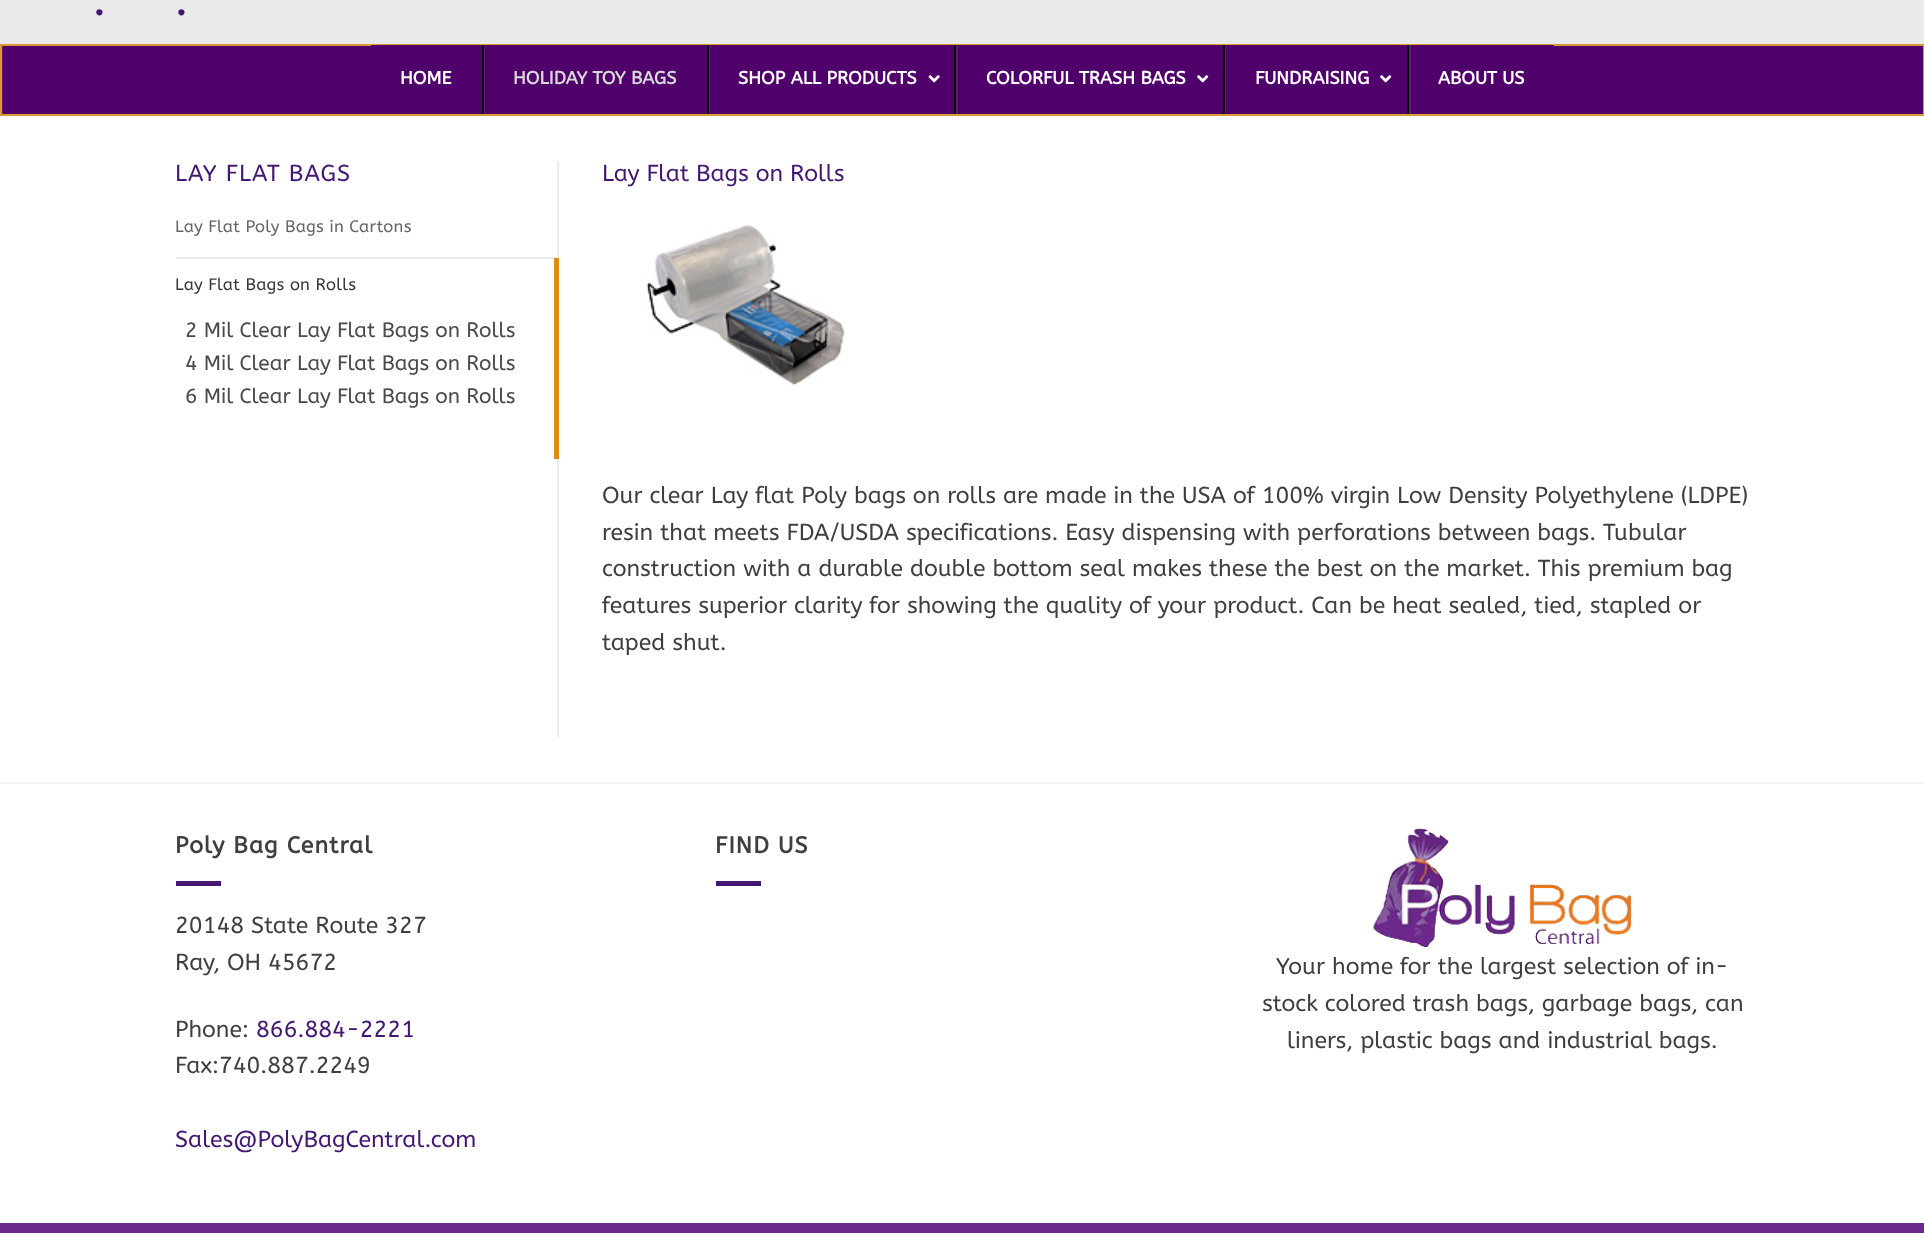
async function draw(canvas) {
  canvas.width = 1924;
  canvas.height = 1233;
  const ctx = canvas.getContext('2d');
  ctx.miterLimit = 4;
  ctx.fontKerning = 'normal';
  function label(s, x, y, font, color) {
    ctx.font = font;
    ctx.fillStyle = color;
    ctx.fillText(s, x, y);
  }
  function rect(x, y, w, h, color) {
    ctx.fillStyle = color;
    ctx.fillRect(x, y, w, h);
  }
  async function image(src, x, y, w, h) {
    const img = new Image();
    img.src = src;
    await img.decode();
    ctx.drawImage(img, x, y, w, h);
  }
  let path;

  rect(0, 0, 1924, 1233, '#fff');
  rect(0, 0, 1924, 44, '#eaeaea');
  label('.', 93, 15, 'bold 39px ABeeZee', '#441772');
  label('.', 175, 15, 'bold 39px ABeeZee', '#441772');
  rect(3, 46, 1920, 68, '#50006a');
  ctx.save();
  ctx.beginPath();
  ctx.rect(2, 45, 1921, 69);
  ctx.clip();
  ctx.fillStyle = '#621a79';
  path = new Path2D('M-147-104H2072V262H-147ZM3 46H1924V116H3Z');
  ctx.fill(path, 'evenodd');
  ctx.restore();
  ctx.strokeStyle = '#d93';
  ctx.lineWidth = 2;
  ctx.strokeRect(1, 45, 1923, 70);
  rect(371, 45, 111, 1, '#50006a');
  label('HOME', 400, 84, 'bold 18px ABeeZee', '#fff');
  rect(485, 45, 222, 1, '#50006a');
  rect(484, 45, 1, 69, '#621a79');
  rect(482, 45, 2, 69, '#000');
  label('HOLIDAY TOY BAGS', 513, 84, 'bold 18px ABeeZee', '#d9d9d9');
  rect(710, 45, 244, 1, '#50006a');
  rect(709, 45, 1, 69, '#621a79');
  rect(707, 45, 2, 69, '#000');
  label('SHOP ALL PRODUCTS', 738, 84, 'bold 18px ABeeZee', '#fff');
  await image('assets/img1.png', 928, 75, 12, 8);
  rect(958, 45, 265, 1, '#50006a');
  rect(956, 45, 2, 69, '#621a79');
  rect(954, 45, 2, 69, '#000');
  label('COLORFUL TRASH BAGS', 986, 84, 'bold 18px ABeeZee', '#fff');
  await image('assets/img2.png', 1197, 75, 12, 8);
  rect(1226, 45, 181, 1, '#50006a');
  rect(1225, 45, 1, 69, '#621a79');
  rect(1223, 45, 2, 69, '#000');
  label('FUNDRAISING', 1255, 84, 'bold 18px ABeeZee', '#fff');
  await image('assets/img2.png', 1380, 75, 12, 8);
  rect(1411, 45, 143, 1, '#50006a');
  rect(1409, 45, 2, 69, '#621a79');
  rect(1407, 45, 2, 69, '#000');
  label('ABOUT US', 1438, 84, 'bold 18px ABeeZee', '#fff');
  rect(557, 161, 2, 576, '#ececec');
  ctx.letterSpacing = '1.1px';
  label('LAY FLAT BAGS', 175, 181, '23.05px ABeeZee', '#441772');
  ctx.letterSpacing = '0.3px';
  label('Lay Flat Poly Bags in Cartons', 175, 232, '16.6px ABeeZee', '#656565');
  rect(176, 257, 381, 2, '#ececec');
  label('Lay Flat Bags on Rolls', 175, 290, '16.6px ABeeZee', '#363636');
  rect(554, 258, 5, 201, '#dd8d13');
  ctx.letterSpacing = '0px';
  label('2 Mil Clear Lay Flat Bags on Rolls', 185, 337, '20.75px ABeeZee', '#4a4a4a');
  label('4 Mil Clear Lay Flat Bags on Rolls', 185, 370, '20.75px ABeeZee', '#4a4a4a');
  label('6 Mil Clear Lay Flat Bags on Rolls', 185, 403, '20.75px ABeeZee', '#4a4a4a');
  label('Lay Flat Bags on Rolls', 602, 181, '23.05px ABeeZee', '#441772');
  await image('assets/img3.png', 646, 225, 199, 161);
  label('Our clear Lay flat Poly bags on rolls are made in the USA of 100% virgin Low Density Polyethylene (LDPE)', 602, 503, '23.05px ABeeZee', '#3f3f3f');
  label('resin that meets FDA/USDA specifications. Easy dispensing with perforations between bags. Tubular', 602, 540, '23.05px ABeeZee', '#3f3f3f');
  label('construction with a durable double bottom seal makes these the best on the market. This premium bag', 602, 576, '23.05px ABeeZee', '#3f3f3f');
  label('features superior clarity for showing the quality of your product. Can be heat sealed, tied, stapled or', 602, 613, '23.05px ABeeZee', '#3f3f3f');
  label('taped shut.', 602, 650, '23.05px ABeeZee', '#3f3f3f');
  rect(0, 782, 1924, 2, '#f2f2f2');
  ctx.letterSpacing = '1.1px';
  label('Poly Bag Central', 175, 853, 'bold 23.05px ABeeZee', '#3f3f3f');
  rect(176, 881, 45, 5, '#441772');
  ctx.letterSpacing = '0px';
  label('20148 State Route 327', 175, 933, '23.05px ABeeZee', '#3f3f3f');
  label('Ray, OH 45672', 175, 970, '23.05px ABeeZee', '#3f3f3f');
  label('Phone:', 175, 1037, '23.05px ABeeZee', '#3f3f3f');
  label('866.884-2221', 256, 1037, '23.05px ABeeZee', '#441772');
  label('Fax:740.887.2249', 175, 1073, '23.05px ABeeZee', '#3f3f3f');
  label('Sales@PolyBagCentral.com', 175, 1147, '23.05px ABeeZee', '#441772');
  ctx.letterSpacing = '1.1px';
  label('FIND US', 715, 853, 'bold 23.05px ABeeZee', '#3f3f3f');
  rect(716, 881, 45, 5, '#441772');
  await image('assets/img4.png', 1373, 828, 259, 119);
  ctx.letterSpacing = '0px';
  label('Your home for the largest selection of in-', 1276, 974, '23.05px ABeeZee', '#3f3f3f');
  label('stock colored trash bags, garbage bags, can', 1262, 1011, '23.05px ABeeZee', '#3f3f3f');
  label('liners, plastic bags and industrial bags.', 1287, 1048, '23.05px ABeeZee', '#3f3f3f');
  rect(0, 1223, 1924, 10, '#6e288a');
}

draw(document.querySelector('canvas'));
